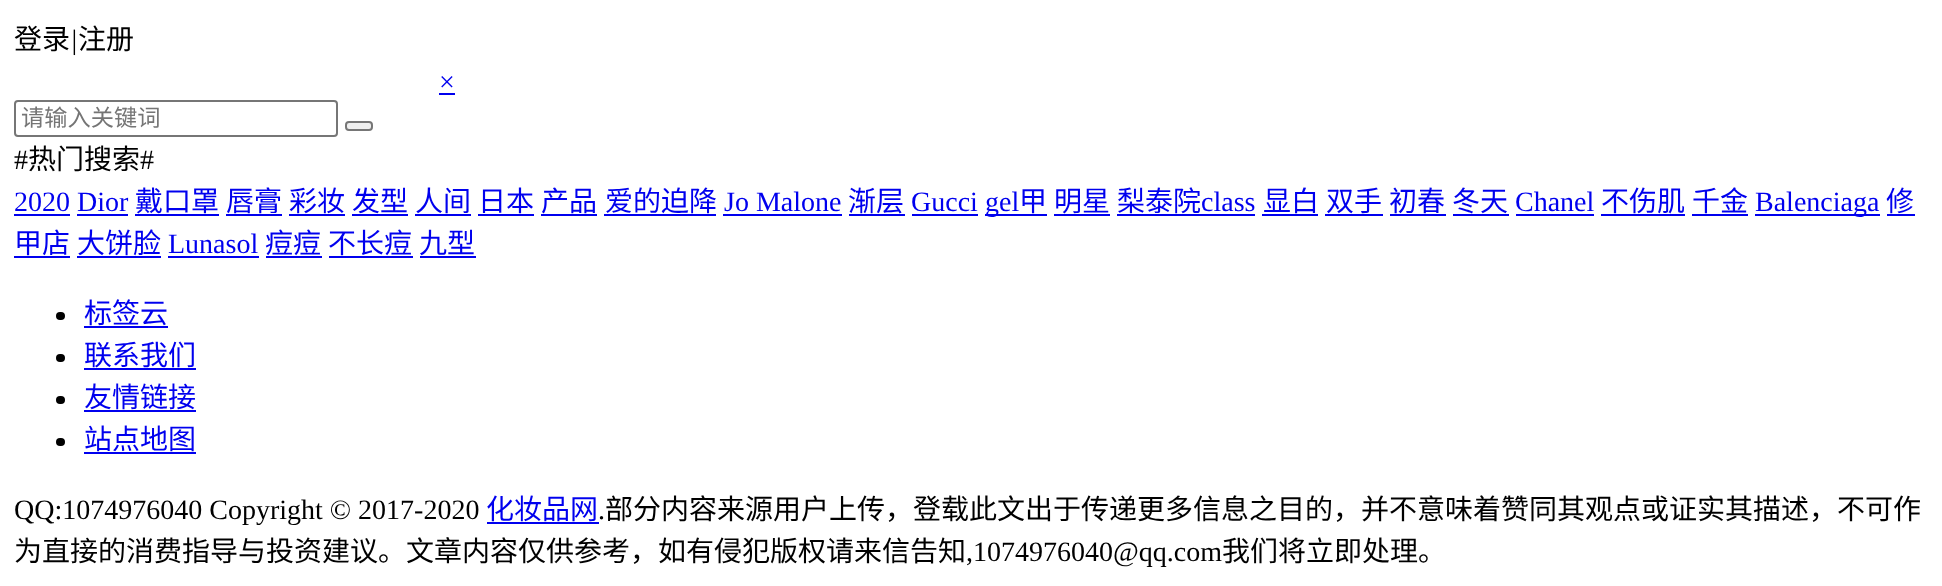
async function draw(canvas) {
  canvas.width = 1942;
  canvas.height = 586;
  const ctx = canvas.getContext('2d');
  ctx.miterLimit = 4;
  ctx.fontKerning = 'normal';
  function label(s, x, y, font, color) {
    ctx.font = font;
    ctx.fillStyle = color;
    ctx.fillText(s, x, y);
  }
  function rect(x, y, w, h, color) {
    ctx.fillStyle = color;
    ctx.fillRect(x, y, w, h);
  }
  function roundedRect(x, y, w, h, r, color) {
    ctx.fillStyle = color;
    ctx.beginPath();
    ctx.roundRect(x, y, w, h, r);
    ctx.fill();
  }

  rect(0, 0, 1942, 586, '#fff');
  label('登录', 14, 49, '28px Noto Sans CJK SC', '#000');
  label('|', 70, 49, 'italic 28px Liberation Serif', '#000');
  label('注册', 78, 49, '28px Noto Sans CJK SC', '#000');
  label('×', 439, 91, '28px Liberation Serif', '#00e');
  rect(439, 93, 16, 2, '#00e');
  ctx.beginPath();
  ctx.roundRect(15, 101, 322, 35, 3);
  ctx.strokeStyle = '#767676';
  ctx.lineWidth = 2;
  ctx.stroke();
  label('请输入关键词', 21, 126, '23.25px Noto Sans CJK SC', '#757575');
  ctx.fillStyle = '#efefef';
  ctx.beginPath();
  ctx.roundRect(346, 122, 26, 8, 3);
  ctx.fill();
  ctx.stroke();
  label('#', 14, 169, '28px Liberation Serif', '#000');
  label('热门搜索', 28, 169, '28px Noto Sans CJK SC', '#000');
  label('#', 140, 169, '28px Liberation Serif', '#000');
  label('2020 Dior', 14, 211, '28px Liberation Serif', '#00e');
  rect(14, 214, 56, 2, '#00e');
  label('戴口罩', 135, 211, '28px Noto Sans CJK SC', '#00e');
  rect(135, 214, 84, 2, '#00e');
  label('唇膏', 226, 211, '28px Noto Sans CJK SC', '#00e');
  rect(226, 214, 56, 2, '#00e');
  label('彩妆', 289, 211, '28px Noto Sans CJK SC', '#00e');
  rect(289, 214, 56, 2, '#00e');
  label('发型', 352, 211, '28px Noto Sans CJK SC', '#00e');
  rect(352, 214, 56, 2, '#00e');
  label('人间', 415, 211, '28px Noto Sans CJK SC', '#00e');
  rect(415, 214, 56, 2, '#00e');
  label('日本', 478, 211, '28px Noto Sans CJK SC', '#00e');
  rect(478, 214, 56, 2, '#00e');
  label('产品', 541, 211, '28px Noto Sans CJK SC', '#00e');
  rect(541, 214, 56, 2, '#00e');
  label('爱的迫降', 605, 211, '28px Noto Sans CJK SC', '#00e');
  rect(604, 214, 112, 2, '#00e');
  label('Jo Malone', 724, 211, '28px Liberation Serif', '#00e');
  rect(723, 214, 119, 2, '#00e');
  label('渐层', 848, 211, '28px Noto Sans CJK SC', '#00e');
  rect(849, 214, 56, 2, '#00e');
  label('Gucci', 911, 211, '28px Liberation Serif', '#00e');
  rect(912, 214, 66, 2, '#00e');
  rect(985, 214, 62, 2, '#00e');
  label('gel', 985, 211, '28px Liberation Serif', '#00e');
  label('甲', 1019, 211, '28px Noto Sans CJK SC', '#00e');
  label('明星', 1054, 211, '28px Noto Sans CJK SC', '#00e');
  rect(1054, 214, 56, 2, '#00e');
  label('梨泰院', 1117, 211, '28px Noto Sans CJK SC', '#00e');
  label('class', 1201, 211, '28px Liberation Serif', '#00e');
  rect(1117, 214, 138, 2, '#00e');
  label('显白', 1263, 211, '28px Noto Sans CJK SC', '#00e');
  rect(1262, 214, 56, 2, '#00e');
  label('双手', 1326, 211, '28px Noto Sans CJK SC', '#00e');
  rect(1325, 214, 58, 2, '#00e');
  label('初春', 1389, 211, '28px Noto Sans CJK SC', '#00e');
  rect(1390, 214, 56, 2, '#00e');
  label('冬天', 1452, 211, '28px Noto Sans CJK SC', '#00e');
  rect(1453, 214, 56, 2, '#00e');
  label('Chanel', 1515, 211, '28px Liberation Serif', '#00e');
  rect(1516, 214, 78, 2, '#00e');
  label('不伤肌', 1601, 211, '28px Noto Sans CJK SC', '#00e');
  rect(1601, 214, 84, 2, '#00e');
  label('千金', 1692, 211, '28px Noto Sans CJK SC', '#00e');
  rect(1692, 214, 56, 2, '#00e');
  rect(1755, 214, 125, 2, '#00e');
  label('Balenciaga', 1755, 211, '28px Liberation Serif', '#00e');
  label('修', 1886, 211, '28px Noto Sans CJK SC', '#00e');
  rect(1887, 214, 28, 2, '#00e');
  rect(77, 214, 51, 2, '#00e');
  label('甲店', 14, 253, '28px Noto Sans CJK SC', '#00e');
  rect(14, 256, 56, 2, '#00e');
  label('大饼脸', 77, 253, '28px Noto Sans CJK SC', '#00e');
  rect(77, 256, 84, 2, '#00e');
  label('Lunasol', 168, 253, '28px Liberation Serif', '#00e');
  rect(168, 256, 91, 2, '#00e');
  label('痘痘', 265, 253, '28px Noto Sans CJK SC', '#00e');
  rect(266, 256, 56, 2, '#00e');
  label('不长痘', 328, 253, '28px Noto Sans CJK SC', '#00e');
  rect(329, 256, 84, 2, '#00e');
  label('九型', 419, 253, '28px Noto Sans CJK SC', '#00e');
  rect(420, 256, 56, 2, '#00e');
  roundedRect(56, 312, 9, 8, 4, '#000');
  label('标签云', 84, 323, '28px Noto Sans CJK SC', '#00e');
  rect(84, 326, 84, 2, '#00e');
  roundedRect(56, 354, 9, 8, 4, '#000');
  label('联系我们', 84, 365, '28px Noto Sans CJK SC', '#00e');
  rect(84, 368, 112, 2, '#00e');
  roundedRect(56, 396, 9, 8, 4, '#000');
  label('友情链接', 84, 407, '28px Noto Sans CJK SC', '#00e');
  rect(84, 410, 112, 2, '#00e');
  roundedRect(56, 438, 9, 8, 4, '#000');
  label('站点地图', 84, 449, '28px Noto Sans CJK SC', '#00e');
  rect(84, 452, 112, 2, '#00e');
  label('QQ:1074976040 Copyright © 2017-2020', 14, 519, '28px Liberation Serif', '#000');
  label('化妆品网', 486, 519, '28px Noto Sans CJK SC', '#00e');
  rect(487, 522, 112, 2, '#00e');
  label('.', 598, 519, '28px Liberation Serif', '#000');
  label('部分内容来源用户上传，登载此文出于传递更多信息之目的，并不意味着赞同其观点或证实其描述，不可作', 605, 519, '28px Noto Sans CJK SC', '#000');
  label('为直接的消费指导与投资建议。文章内容仅供参考，如有侵犯版权请来信告知', 14, 561, '28px Noto Sans CJK SC', '#000');
  label(',1074976040@qq.com', 966, 561, '28px Liberation Serif', '#000');
  label('我们将立即处理。', 1222, 561, '28px Noto Sans CJK SC', '#000');
}

draw(document.querySelector('canvas'));
